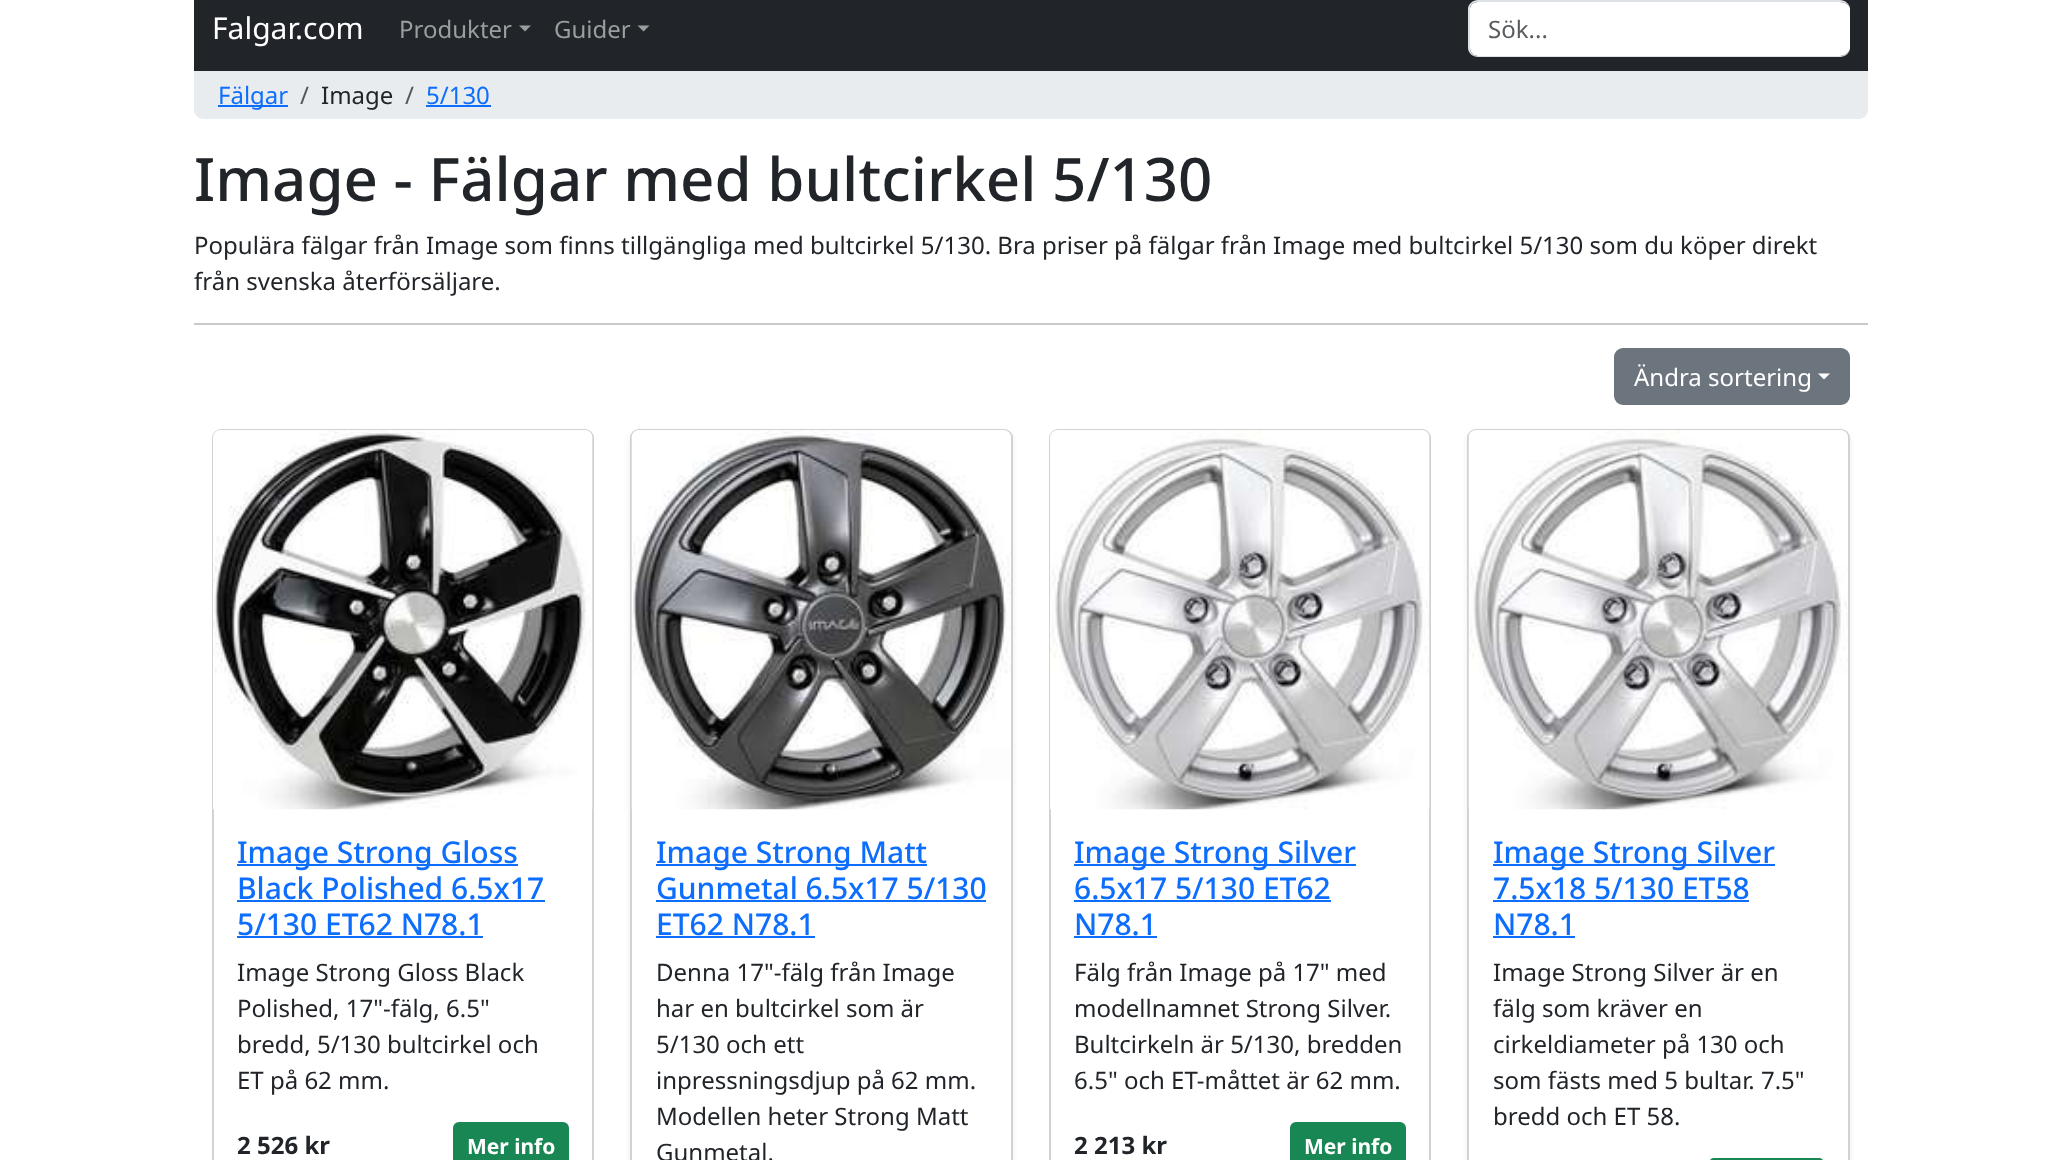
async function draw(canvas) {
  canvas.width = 2061;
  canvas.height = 1160;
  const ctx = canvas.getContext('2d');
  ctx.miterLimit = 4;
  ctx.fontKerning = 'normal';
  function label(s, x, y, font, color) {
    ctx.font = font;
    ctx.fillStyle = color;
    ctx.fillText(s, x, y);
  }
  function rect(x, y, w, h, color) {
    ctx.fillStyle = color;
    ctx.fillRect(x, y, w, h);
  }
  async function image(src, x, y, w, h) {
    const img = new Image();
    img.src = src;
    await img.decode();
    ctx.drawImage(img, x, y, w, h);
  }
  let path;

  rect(0, 0, 2061, 1160, '#fff');
  rect(194, 0, 1674, 71, '#212529');
  label('Falgar.com', 212, 39, '30px Noto Sans', '#fff');
  label('Produkter', 399, 38, '24px Noto Sans', '#9b9d9f');
  path = new Path2D('M519 25.5H531L525 31.5Z');
  ctx.fill(path);
  label('Guider', 554, 38, '24px Noto Sans', '#9b9d9f');
  path = new Path2D('M637.5 25.5H649.5L643.5 31.5Z');
  ctx.fill(path);
  ctx.fillStyle = '#fff';
  path = new Path2D('M1478 2H1840C1845 2 1850 5 1850 9V48C1850 52 1845 56 1840 56H1478C1473 56 1470 52 1470 48V9C1470 5 1473 2 1478 2Z');
  ctx.fill(path);
  ctx.fillStyle = '#dee2e6';
  path = new Path2D('M1478 0H1840C1845 0 1850 4 1850 9V48C1850 53 1845 57 1840 57H1478C1473 57 1468 53 1468 48V9C1468 4 1473 0 1478 0ZM1478 2H1840C1845 2 1850 5 1850 9V48C1850 52 1845 56 1840 56H1478C1473 56 1470 52 1470 48V9C1470 5 1473 2 1478 2Z');
  ctx.fill(path, 'evenodd');
  label('Sök...', 1488, 38, '24px Noto Sans', '#595c5f');
  ctx.fillStyle = '#e9ecef';
  ctx.beginPath();
  ctx.roundRect(194, 71, 1674, 48, [0, 0, 9, 9]);
  ctx.fill();
  rect(218, 105, 70, 2, '#0d6efd');
  label('Fälgar', 218, 104, '24px Noto Sans', '#0d6efd');
  label('/', 300, 104, '24px Noto Sans', '#53575b');
  label('Image', 321, 104, '24px Noto Sans', '#212529');
  label('/', 405, 104, '24px Noto Sans', '#53575b');
  label('5/130', 426, 104, '24px Noto Sans', '#0d6efd');
  rect(426, 105, 65, 2, '#0d6efd');
  label('Image - Fälgar med bultcirkel 5/130', 194, 201, '500 60px Noto Sans', '#212529');
  label('Populära fälgar från Image som finns tillgängliga med bultcirkel 5/130. Bra priser på fälgar från Image med bultcirkel 5/130 som du köper direkt', 194, 254, '24px Noto Sans', '#212529');
  label('från svenska återförsäljare.', 194, 290, '24px Noto Sans', '#212529');
  rect(194, 323, 1674, 2, '#c8c9ca');
  ctx.fillStyle = '#6c757d';
  ctx.beginPath();
  ctx.roundRect(1615, 349, 234, 55, 8);
  ctx.fill();
  ctx.strokeStyle = '#6c757d';
  ctx.lineWidth = 2;
  ctx.stroke();
  label('Ändra sortering', 1634, 386, '24px Noto Sans', '#fff');
  path = new Path2D('M1818 373.5H1830L1824 379.5Z');
  ctx.fill(path);
  ctx.beginPath();
  ctx.roundRect(213, 430, 380, 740, 8);
  ctx.strokeStyle = '#d2d2d2';
  ctx.stroke();
  await image('assets/img1.png', 213, 430, 380, 380);
  rect(237, 864, 281, 2, '#0d6efd');
  label('Image Strong Gloss', 237, 863, '500 30px Noto Sans', '#0d6efd');
  label('Black Polished 6.5x17', 237, 899, '500 30px Noto Sans', '#0d6efd');
  rect(237, 900, 308, 2, '#0d6efd');
  label('5/130 ET62 N78.1', 237, 935, '500 30px Noto Sans', '#0d6efd');
  rect(237, 936, 246, 2, '#0d6efd');
  label('Image Strong Gloss Black', 237, 981, '24px Noto Sans', '#212529');
  label('Polished, 17"-fälg, 6.5"', 237, 1017, '24px Noto Sans', '#212529');
  label('bredd, 5/130 bultcirkel och', 237, 1053, '24px Noto Sans', '#212529');
  label('ET på 62 mm.', 237, 1089, '24px Noto Sans', '#212529');
  label('2 526 kr', 237, 1154, 'bold 24px Noto Sans', '#212529');
  ctx.fillStyle = '#198754';
  ctx.beginPath();
  ctx.roundRect(454, 1123, 114, 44, 5);
  ctx.fill();
  ctx.strokeStyle = '#198754';
  ctx.stroke();
  label('Mer info', 467, 1154, 'bold 21px Noto Sans', '#fff');
  ctx.fillStyle = '#00000012';
  ctx.filter = 'blur(3px)';
  ctx.beginPath();
  ctx.roundRect(630, 432, 383, 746, 9);
  ctx.fill();
  ctx.filter = 'none';
  ctx.fillStyle = '#fff';
  ctx.beginPath();
  ctx.roundRect(631, 430, 381, 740, 8);
  ctx.fill();
  ctx.strokeStyle = '#d2d2d2';
  ctx.stroke();
  await image('assets/img2.png', 631, 430, 380, 380);
  rect(656, 864, 271, 2, '#0d6efd');
  label('Image Strong Matt', 656, 863, '500 30px Noto Sans', '#0d6efd');
  label('Gunmetal 6.5x17 5/130', 656, 899, '500 30px Noto Sans', '#0d6efd');
  rect(656, 900, 330, 2, '#0d6efd');
  label('ET62 N78.1', 656, 935, '500 30px Noto Sans', '#0d6efd');
  rect(656, 936, 159, 2, '#0d6efd');
  label('Denna 17"-fälg från Image', 656, 981, '24px Noto Sans', '#212529');
  label('har en bultcirkel som är', 656, 1017, '24px Noto Sans', '#212529');
  label('5/130 och ett', 656, 1053, '24px Noto Sans', '#212529');
  label('inpressningsdjup på 62 mm.', 656, 1089, '24px Noto Sans', '#212529');
  label('Modellen heter Strong Matt', 656, 1125, '24px Noto Sans', '#212529');
  label('Gunmetal.', 656, 1161, '24px Noto Sans', '#212529');
  ctx.beginPath();
  ctx.roundRect(1050, 430, 380, 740, 8);
  ctx.stroke();
  await image('assets/img3.png', 1050, 430, 380, 380);
  rect(1074, 864, 282, 2, '#0d6efd');
  label('Image Strong Silver', 1074, 863, '500 30px Noto Sans', '#0d6efd');
  label('6.5x17 5/130 ET62', 1074, 899, '500 30px Noto Sans', '#0d6efd');
  rect(1074, 900, 257, 2, '#0d6efd');
  label('N78.1', 1074, 935, '500 30px Noto Sans', '#0d6efd');
  rect(1074, 936, 83, 2, '#0d6efd');
  label('Fälg från Image på 17" med', 1074, 981, '24px Noto Sans', '#212529');
  label('modellnamnet Strong Silver.', 1074, 1017, '24px Noto Sans', '#212529');
  label('Bultcirkeln är 5/130, bredden', 1074, 1053, '24px Noto Sans', '#212529');
  label('6.5" och ET-måttet är 62 mm.', 1074, 1089, '24px Noto Sans', '#212529');
  label('2 213 kr', 1074, 1154, 'bold 24px Noto Sans', '#212529');
  ctx.fillStyle = '#198754';
  ctx.beginPath();
  ctx.roundRect(1291, 1123, 114, 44, 5);
  ctx.fill();
  ctx.strokeStyle = '#198754';
  ctx.stroke();
  label('Mer info', 1304, 1154, 'bold 21px Noto Sans', '#fff');
  ctx.fillStyle = '#00000012';
  ctx.filter = 'blur(3px)';
  ctx.beginPath();
  ctx.roundRect(1467, 432, 383, 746, 9);
  ctx.fill();
  ctx.filter = 'none';
  ctx.fillStyle = '#fff';
  ctx.beginPath();
  ctx.roundRect(1468, 430, 381, 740, 8);
  ctx.fill();
  ctx.strokeStyle = '#d2d2d2';
  ctx.stroke();
  await image('assets/img4.png', 1468, 430, 380, 380);
  rect(1493, 864, 282, 2, '#0d6efd');
  label('Image Strong Silver', 1493, 863, '500 30px Noto Sans', '#0d6efd');
  label('7.5x18 5/130 ET58', 1493, 899, '500 30px Noto Sans', '#0d6efd');
  rect(1493, 900, 256, 2, '#0d6efd');
  label('N78.1', 1493, 935, '500 30px Noto Sans', '#0d6efd');
  rect(1493, 936, 82, 2, '#0d6efd');
  label('Image Strong Silver är en', 1493, 981, '24px Noto Sans', '#212529');
  label('fälg som kräver en', 1493, 1017, '24px Noto Sans', '#212529');
  label('cirkeldiameter på 130 och', 1493, 1053, '24px Noto Sans', '#212529');
  label('som fästs med 5 bultar. 7.5"', 1493, 1089, '24px Noto Sans', '#212529');
  label('bredd och ET 58.', 1493, 1125, '24px Noto Sans', '#212529');
  ctx.beginPath();
  ctx.roundRect(1710, 1159, 113, 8, 5);
  ctx.strokeStyle = '#198754';
  ctx.stroke();
}

draw(document.querySelector('canvas'));
